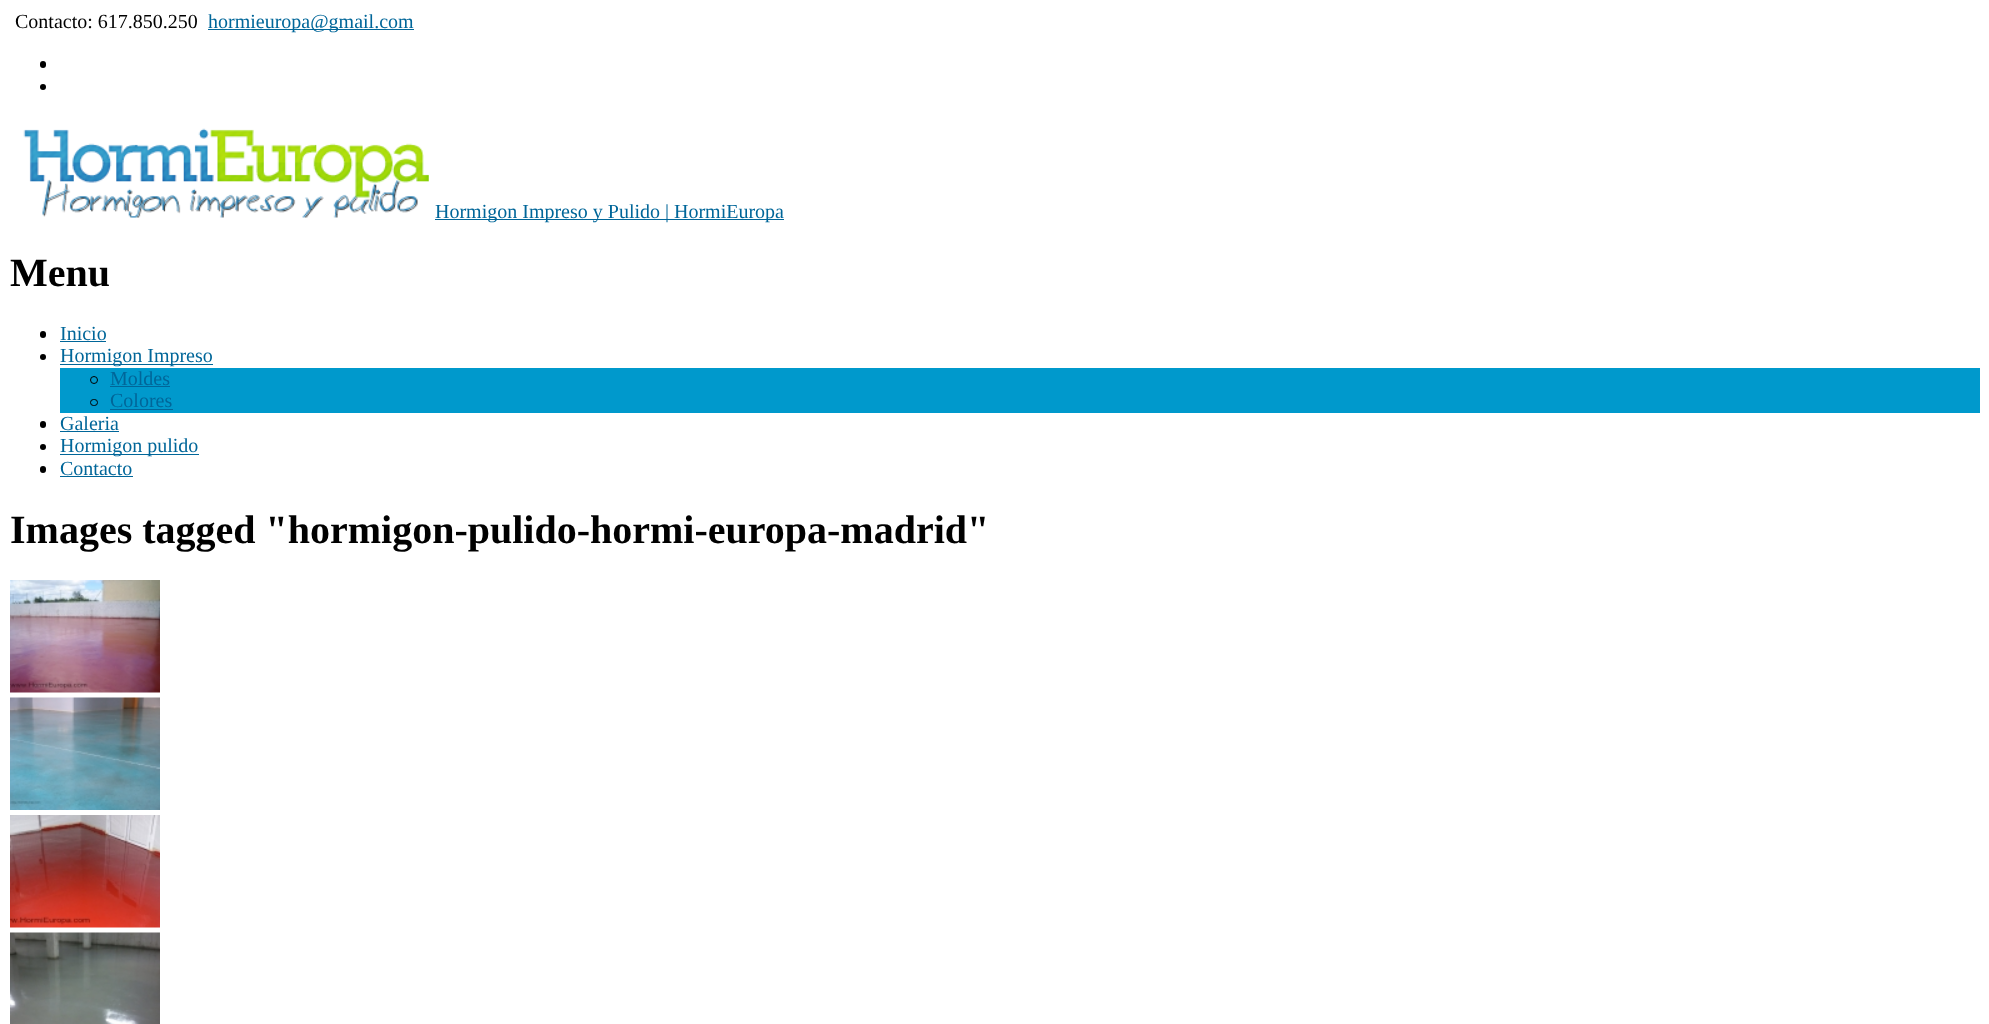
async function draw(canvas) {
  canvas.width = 1989;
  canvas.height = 1024;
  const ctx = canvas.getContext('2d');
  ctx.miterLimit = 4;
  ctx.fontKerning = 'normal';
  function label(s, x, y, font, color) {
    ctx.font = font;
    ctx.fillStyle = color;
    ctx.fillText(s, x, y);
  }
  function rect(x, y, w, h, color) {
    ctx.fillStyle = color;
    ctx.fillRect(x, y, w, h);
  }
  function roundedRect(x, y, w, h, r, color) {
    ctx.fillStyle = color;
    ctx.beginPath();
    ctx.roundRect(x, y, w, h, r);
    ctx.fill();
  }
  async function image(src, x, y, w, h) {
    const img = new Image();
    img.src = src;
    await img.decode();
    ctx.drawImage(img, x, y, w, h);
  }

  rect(0, 0, 1989, 1024, '#fff');
  label('Contacto: 617.850.250', 15, 28, '20px Liberation Serif', '#000');
  rect(208, 29, 206, 1, '#069');
  label('hormieuropa@gmail.com', 208, 28, '20px Liberation Serif', '#069');
  roundedRect(40, 61, 6, 7, 3, '#000');
  ctx.beginPath();
  ctx.arc(43, 87, 3, 0, 2 * Math.PI);
  ctx.fill();
  await image('assets/img1.png', 23, 128, 406, 90);
  rect(435, 219, 349, 1, '#069');
  label('Hormigon Impreso y Pulido | HormiEuropa', 435, 218, '20px Liberation Serif', '#069');
  label('Menu', 10, 286, 'bold 40px Liberation Serif', '#000');
  roundedRect(40, 331, 6, 7, 3, '#000');
  label('Inicio', 60, 340, '20px Liberation Serif', '#069');
  rect(60, 341, 46, 1, '#069');
  ctx.fillStyle = '#000';
  ctx.beginPath();
  ctx.arc(43, 357, 3, 0, 2 * Math.PI);
  ctx.fill();
  rect(60, 364, 153, 1, '#069');
  label('Hormigon Impreso', 60, 362, '20px Liberation Serif', '#069');
  rect(60, 368, 1920, 45, '#09c');
  ctx.beginPath();
  ctx.arc(94, 380, 3.5, 0, 2 * Math.PI);
  ctx.strokeStyle = '#000';
  ctx.stroke();
  label('Moldes', 110, 385, '20px Liberation Serif', '#069');
  rect(110, 386, 60, 1, '#069');
  ctx.beginPath();
  ctx.roundRect(90.5, 399.5, 7, 6, 3);
  ctx.stroke();
  label('Colores', 110, 407, '20px Liberation Serif', '#069');
  rect(110, 409, 63, 1, '#069');
  roundedRect(40, 421, 6, 7, 3, '#000');
  label('Galeria', 60, 430, '20px Liberation Serif', '#069');
  rect(60, 431, 59, 1, '#069');
  ctx.fillStyle = '#000';
  ctx.beginPath();
  ctx.arc(43, 447, 3, 0, 2 * Math.PI);
  ctx.fill();
  rect(60, 454, 139, 1, '#069');
  label('Hormigon pulido', 60, 452, '20px Liberation Serif', '#069');
  roundedRect(40, 466, 6, 7, 3, '#000');
  label('Contacto', 60, 475, '20px Liberation Serif', '#069');
  rect(60, 476, 73, 1, '#069');
  label('Images tagged "hormigon-pulido-hormi-europa-madrid"', 10, 543, 'bold 40px Liberation Serif', '#000');
  await image('assets/img2.png', 10, 580, 150, 113);
  await image('assets/img3.png', 10, 697, 150, 113);
  await image('assets/img4.png', 10, 815, 150, 113);
  await image('assets/img5.png', 10, 932, 150, 92);
}

draw(document.querySelector('canvas'));
